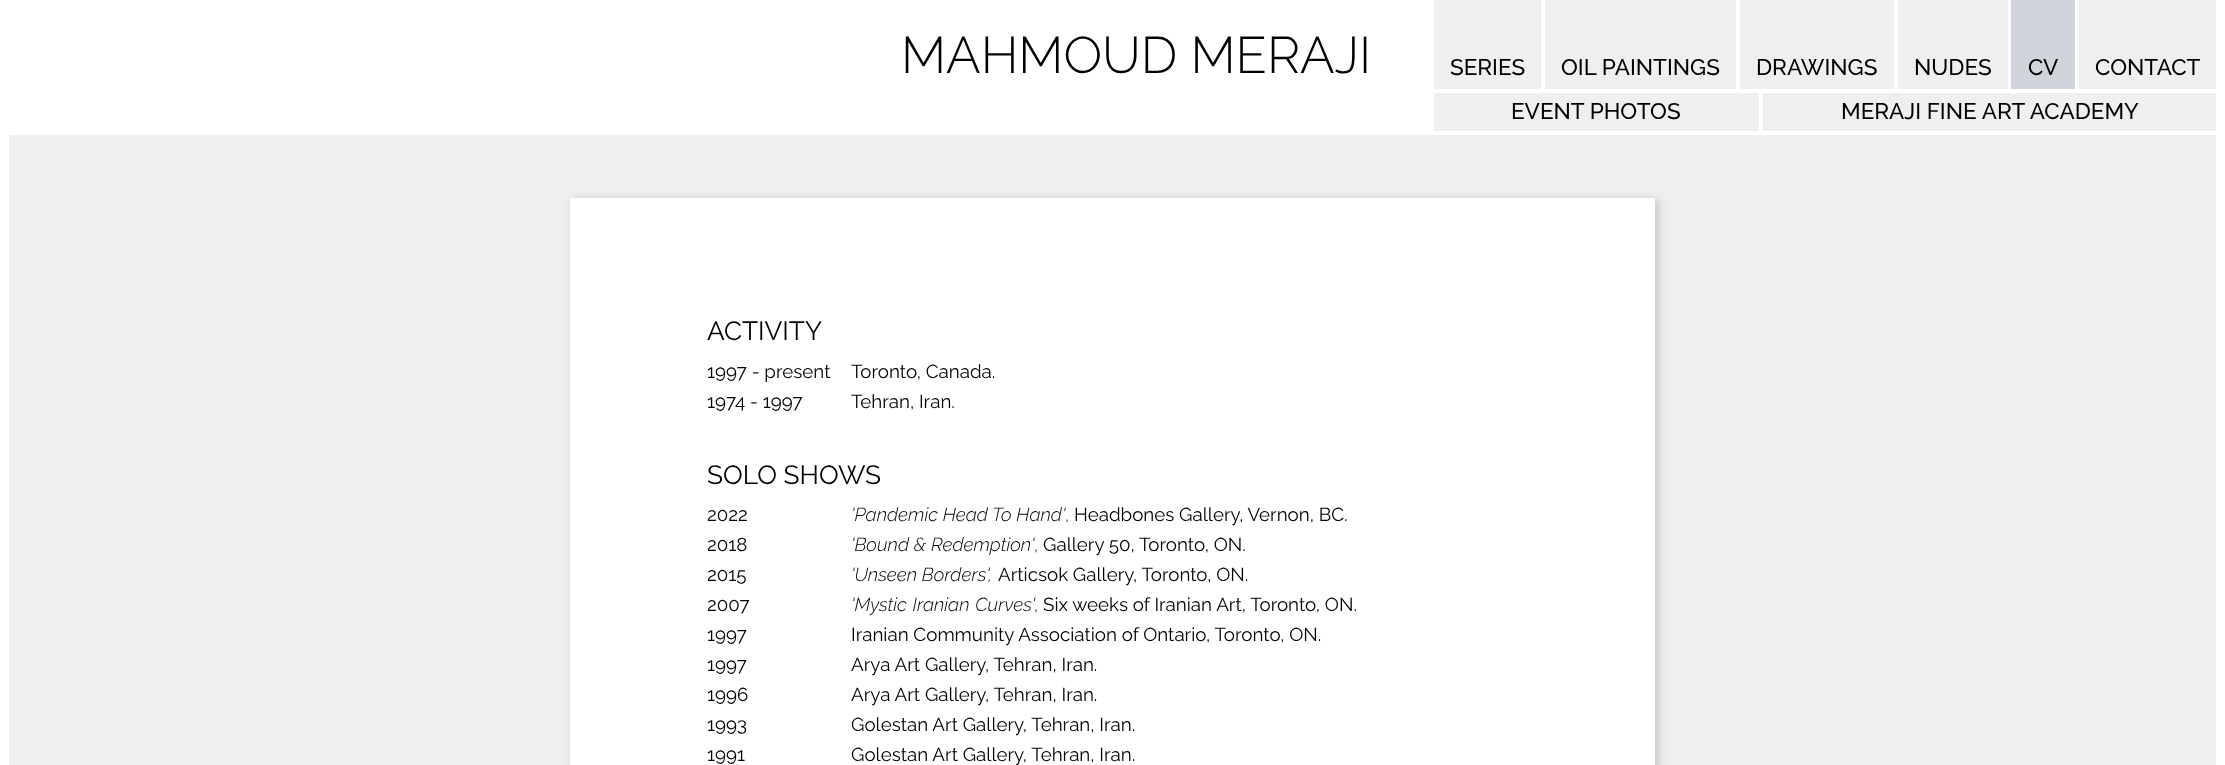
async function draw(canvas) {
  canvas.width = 2225;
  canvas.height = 765;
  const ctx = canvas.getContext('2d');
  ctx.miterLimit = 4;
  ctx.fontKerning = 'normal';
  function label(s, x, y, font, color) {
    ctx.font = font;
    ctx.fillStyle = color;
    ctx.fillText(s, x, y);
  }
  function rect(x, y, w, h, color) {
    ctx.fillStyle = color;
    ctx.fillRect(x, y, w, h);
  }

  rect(0, 0, 2225, 765, '#fff');
  label('MAHMOUD MERAJI', 901, 73, '300 51.25px Raleway', '#000');
  rect(1434, 0, 107, 89, '#efefef');
  label('SERIES', 1450, 75, '500 22.5px Raleway', '#000');
  rect(1545, 0, 191, 89, '#efefef');
  label('OIL PAINTINGS', 1561, 75, '500 22.5px Raleway', '#000');
  rect(1740, 0, 154, 89, '#efefef');
  label('DRAWINGS', 1756, 75, '500 22.5px Raleway', '#000');
  rect(1898, 0, 110, 89, '#efefef');
  label('NUDES', 1914, 75, '500 22.5px Raleway', '#000');
  rect(2011, 0, 64, 89, '#d1d5db');
  label('CV', 2028, 75, '500 22.5px Raleway', '#000');
  rect(2079, 0, 137, 89, '#efefef');
  label('CONTACT', 2095, 75, '500 22.5px Raleway', '#000');
  rect(1434, 93, 325, 38, '#efefef');
  label('EVENT PHOTOS', 1511, 119, '500 22.5px Raleway', '#000');
  rect(1763, 93, 453, 38, '#efefef');
  label('MERAJI FINE ART ACADEMY', 1841, 119, '500 22.5px Raleway', '#000');
  rect(9, 135, 2207, 630, '#efefef');
  ctx.fillStyle = '#c1c1c1';
  ctx.filter = 'blur(5px)';
  ctx.beginPath();
  ctx.rect(573, 200, 1085, 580);
  ctx.fill();
  ctx.filter = 'none';
  rect(570, 198, 1085, 567, '#fff');
  label('ACTIVITY', 707, 340, '26.25px Raleway', '#000');
  label('1997 - present', 707, 378, '18.75px Raleway', '#000');
  label('Toronto, Canada.', 851, 378, '18.75px Raleway', '#000');
  label('1974 - 1997', 707, 408, '18.75px Raleway', '#000');
  label('Tehran, Iran.', 851, 408, '18.75px Raleway', '#000');
  label('SOLO SHOWS', 707, 484, '26.25px Raleway', '#000');
  label('2022', 707, 521, '18.75px Raleway', '#000');
  label('\'Pandemic Head To Hand\'', 851, 521, 'italic 300 18.75px Raleway', '#000');
  label(',', 1066, 521, 'italic 300 18.75px Raleway', '#000');
  label('Headbones Gallery, Vernon, BC.', 1074, 521, '18.75px Raleway', '#000');
  label('2018', 707, 551, '18.75px Raleway', '#000');
  label('\'Bound & Redemption\'', 851, 551, 'italic 300 18.75px Raleway', '#000');
  label(',', 1035, 551, 'italic 300 18.75px Raleway', '#000');
  label('Gallery 50, Toronto, ON.', 1043, 551, '18.75px Raleway', '#000');
  label('2015', 707, 581, '18.75px Raleway', '#000');
  label('\'Unseen Borders\',', 851, 581, 'italic 300 18.75px Raleway', '#000');
  label('Articsok Gallery, Toronto, ON.', 998, 581, '18.75px Raleway', '#000');
  label('2007', 707, 611, '18.75px Raleway', '#000');
  ctx.wordSpacing = '1px';
  label('\'Mystic Iranian Curves\'', 851, 611, 'italic 300 18.75px Raleway', '#000');
  ctx.wordSpacing = '0px';
  label(',', 1035, 611, 'italic 300 18.75px Raleway', '#000');
  label('Six weeks of Iranian Art, Toronto, ON.', 1043, 611, '18.75px Raleway', '#000');
  label('1997', 707, 641, '18.75px Raleway', '#000');
  label('Iranian Community Association of Ontario, Toronto, ON.', 851, 641, '18.75px Raleway', '#000');
  label('1997', 707, 671, '18.75px Raleway', '#000');
  label('Arya Art Gallery, Tehran, Iran.', 851, 671, '18.75px Raleway', '#000');
  label('1996', 707, 701, '18.75px Raleway', '#000');
  label('Arya Art Gallery, Tehran, Iran.', 851, 701, '18.75px Raleway', '#000');
  label('1993', 707, 731, '18.75px Raleway', '#000');
  label('Golestan Art Gallery, Tehran, Iran.', 851, 731, '18.75px Raleway', '#000');
  label('1991', 707, 761, '18.75px Raleway', '#000');
  label('Golestan Art Gallery, Tehran, Iran.', 851, 761, '18.75px Raleway', '#000');
}

draw(document.querySelector('canvas'));
